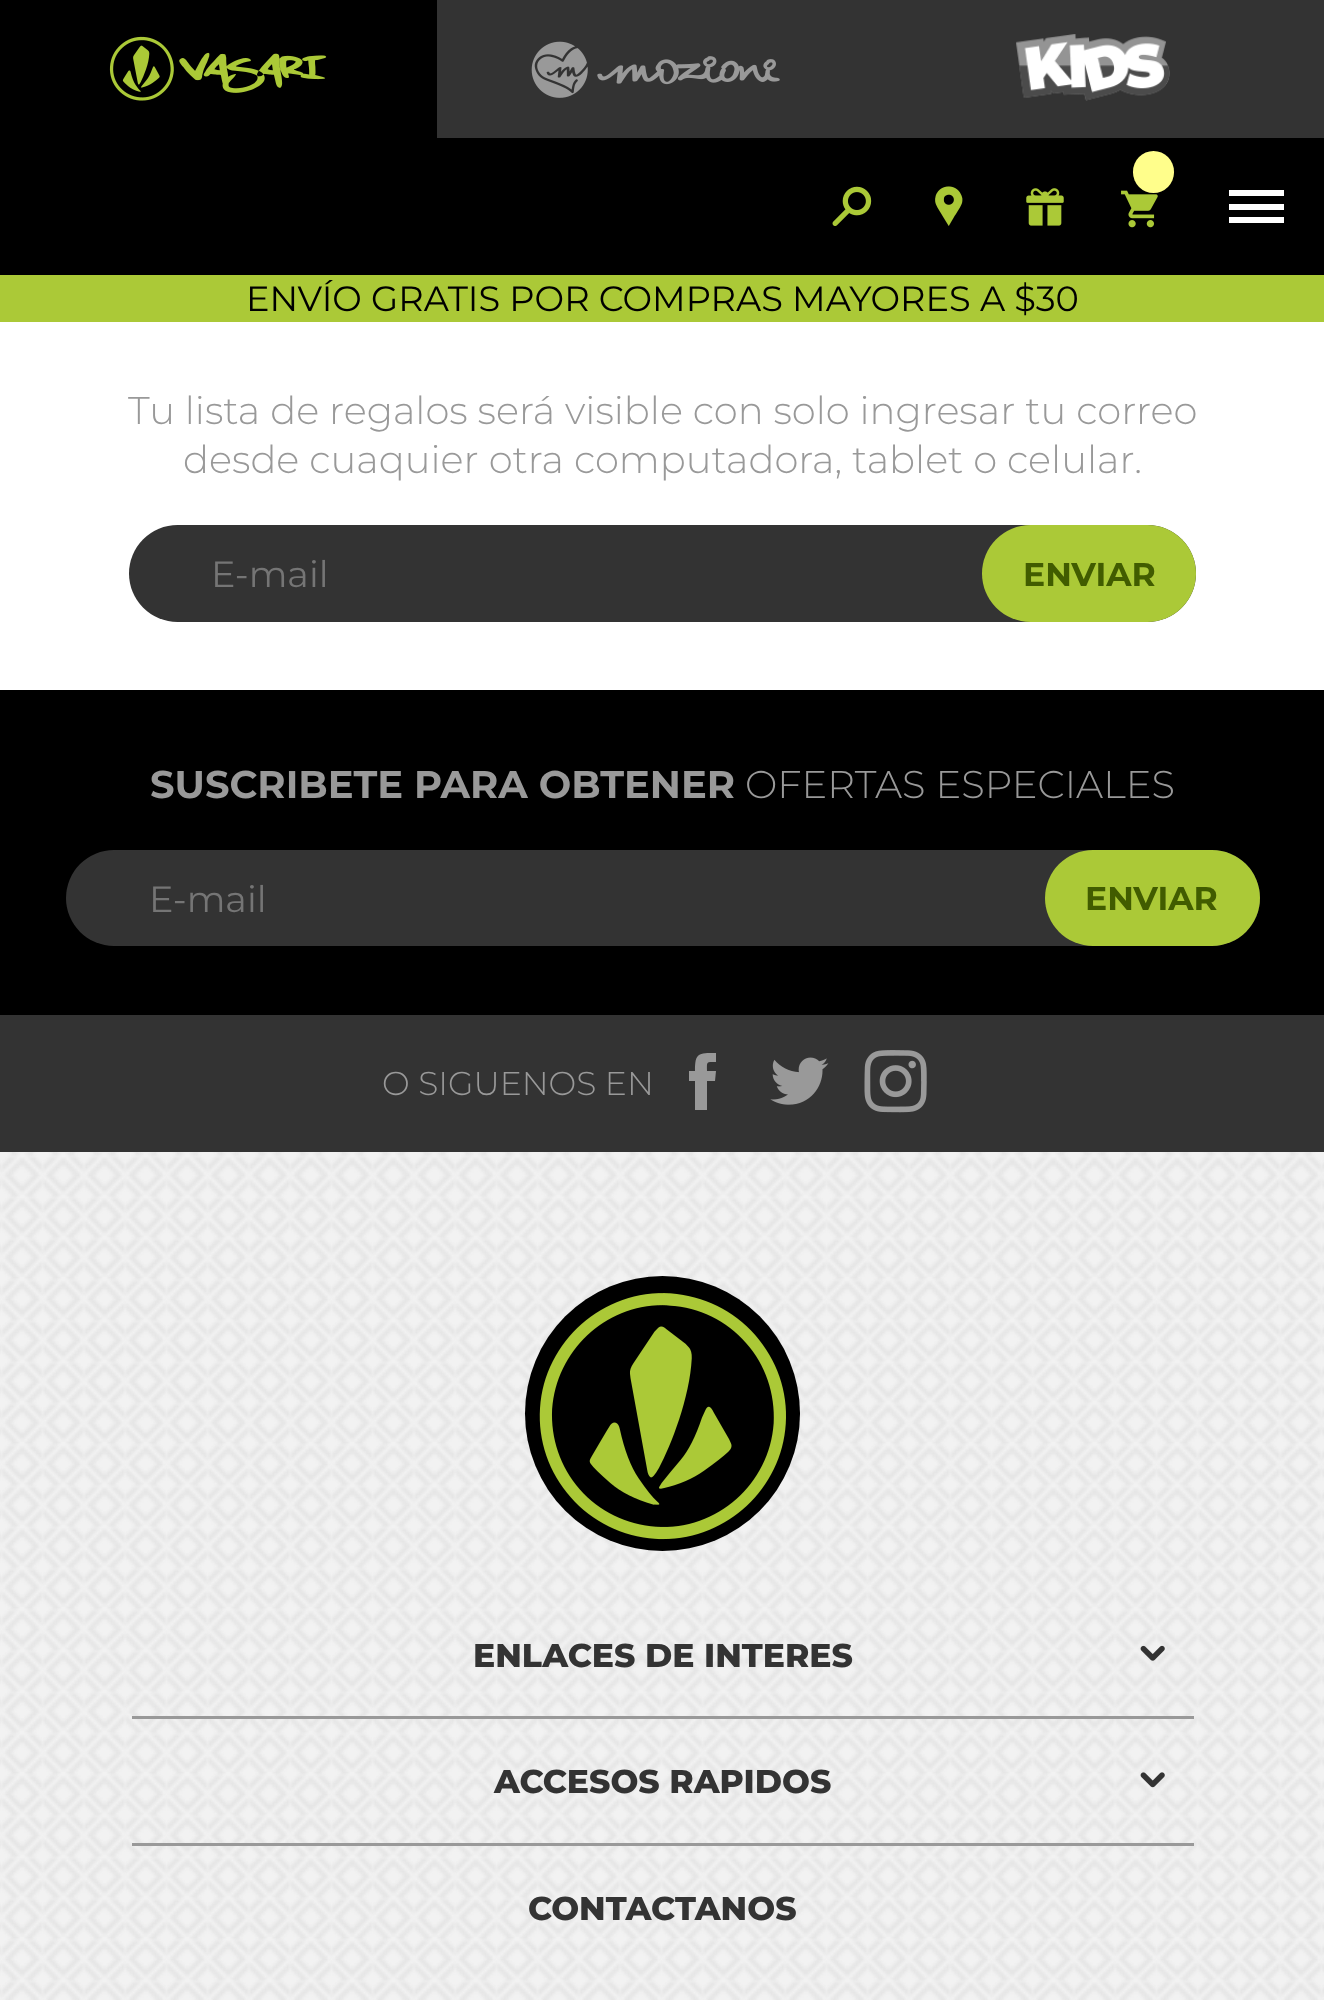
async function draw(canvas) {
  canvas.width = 1324;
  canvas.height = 2000;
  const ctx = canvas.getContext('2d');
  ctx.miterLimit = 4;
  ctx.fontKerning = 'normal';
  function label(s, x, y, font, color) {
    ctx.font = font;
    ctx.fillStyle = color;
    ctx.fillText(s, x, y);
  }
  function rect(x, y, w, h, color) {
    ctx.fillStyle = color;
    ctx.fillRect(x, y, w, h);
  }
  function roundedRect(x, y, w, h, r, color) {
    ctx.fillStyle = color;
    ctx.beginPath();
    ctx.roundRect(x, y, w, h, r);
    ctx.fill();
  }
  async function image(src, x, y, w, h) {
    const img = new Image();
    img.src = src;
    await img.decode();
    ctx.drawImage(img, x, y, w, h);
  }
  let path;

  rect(0, 0, 1324, 2000, '#fff');
  rect(437, 0, 887, 138, '#333');
  rect(0, 0, 437, 138, '#000');
  await image('assets/img1.png', 109, 36, 218, 65);
  await image('assets/img2.png', 531, 41, 249, 57);
  await image('assets/img3.png', 1016, 34, 154, 67);
  rect(0, 138, 1324, 137, '#000');
  await image('assets/img4.png', 832, 186, 40, 40);
  await image('assets/img5.png', 935, 186, 28, 40);
  await image('assets/img6.png', 1026, 188, 38, 38);
  await image('assets/img7.png', 1121, 190, 37, 38);
  roundedRect(1133, 151, 41, 42, 20.5, '#fffe8b');
  rect(1229, 190, 55, 6, '#fff');
  rect(1229, 204, 55, 6, '#fff');
  rect(1229, 217, 55, 6, '#fff');
  rect(0, 275, 1324, 47, '#abc937');
  label('ENVÍO GRATIS POR COMPRAS MAYORES A $30', 246, 311, '35.2px Montserrat', '#000');
  label('Tu lista de regalos será visible con solo ingresar tu correo', 128, 424, '300 38.5px Montserrat', '#999');
  label('desde cuaquier otra computadora, tablet o celular.', 183, 473, '300 38.5px Montserrat', '#999');
  roundedRect(129, 525, 1067, 97, 48.5, '#333');
  label('E-mail', 211, 587, '36.5px Montserrat', '#757575');
  roundedRect(982, 525, 214, 97, 48.5, '#abc937');
  label('ENVIAR', 1023, 586, 'bold 33px Montserrat', '#415c00');
  rect(0, 690, 1324, 325, '#000');
  label('SUSCRIBETE PARA OBTENER', 150, 798, 'bold 38.5px Montserrat', '#999');
  label('OFERTAS ESPECIALES', 745, 798, '300 38.5px Montserrat', '#999');
  roundedRect(66, 850, 1194, 96, 48, '#333');
  label('E-mail', 149, 912, '36.5px Montserrat', '#757575');
  roundedRect(1045, 850, 215, 96, 48, '#abc937');
  label('ENVIAR', 1085, 910, 'bold 33px Montserrat', '#415c00');
  rect(0, 1015, 1324, 137, '#333');
  label('O SIGUENOS EN', 382, 1095, '300 33px Montserrat', '#999');
  path = new Path2D('M716 1071H707C707 1061 706 1062 716 1062V1053C698 1053 695 1053 695 1071H689V1081H695V1110H707V1081H715Z');
  ctx.fill(path);
  await image('assets/img8.png', 770, 1057, 59, 48);
  await image('assets/img9.png', 864, 1050, 63, 63);
  rect(0, 1152, 1324, 848, '#f2f2f2');
  await image('assets/img10.png', 0, 1152, 1324, 848);
  ctx.fillStyle = '#000';
  ctx.beginPath();
  ctx.arc(662.5, 1413.5, 137.5, 0, 2 * Math.PI);
  ctx.fill();
  await image('assets/img11.png', 539, 1293, 247, 247);
  rect(132, 1716, 1062, 3, '#999');
  label('ENLACES DE INTERES', 473, 1667, '800 33px Montserrat', '#333');
  await image('assets/img12.png', 1140, 1645, 25, 16);
  rect(132, 1843, 1062, 3, '#999');
  label('ACCESOS RAPIDOS', 494, 1793, '800 33px Montserrat', '#333');
  await image('assets/img13.png', 1140, 1772, 25, 16);
  label('CONTACTANOS', 528, 1920, '800 33px Montserrat', '#333');
}

draw(document.querySelector('canvas'));
